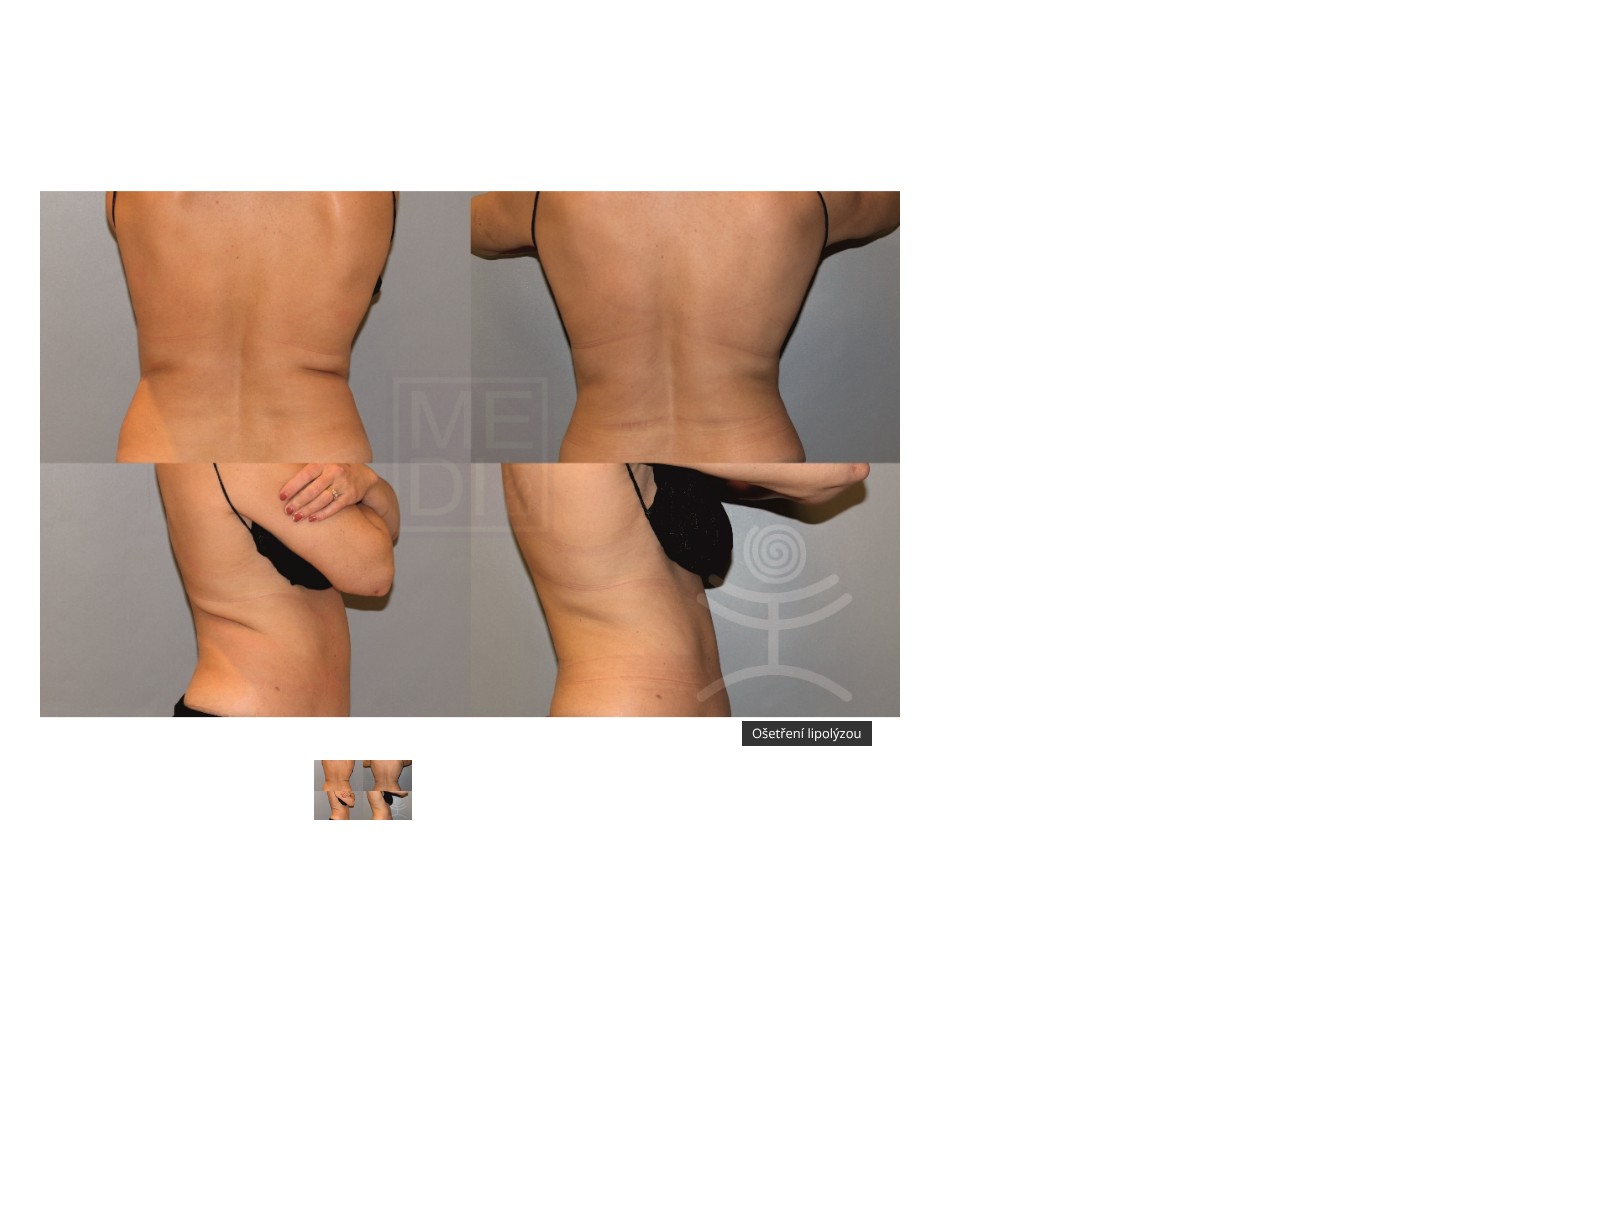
async function draw(canvas) {
  canvas.width = 1614;
  canvas.height = 1223;
  const ctx = canvas.getContext('2d');
  ctx.miterLimit = 4;
  ctx.fontKerning = 'normal';
  function label(s, x, y, font, color) {
    ctx.font = font;
    ctx.fillStyle = color;
    ctx.fillText(s, x, y);
  }
  function rect(x, y, w, h, color) {
    ctx.fillStyle = color;
    ctx.fillRect(x, y, w, h);
  }
  async function image(src, x, y, w, h) {
    const img = new Image();
    img.src = src;
    await img.decode();
    ctx.drawImage(img, x, y, w, h);
  }

  rect(0, 0, 1614, 1223, '#fff');
  await image('assets/img1.png', 40, 191, 860, 527);
  rect(742, 721, 130, 25, '#333');
  label('Ošetření lipolýzou', 752, 738, '13px Open Sans', '#fff');
  await image('assets/img2.png', 314, 760, 98, 60);
}

draw(document.querySelector('canvas'));
